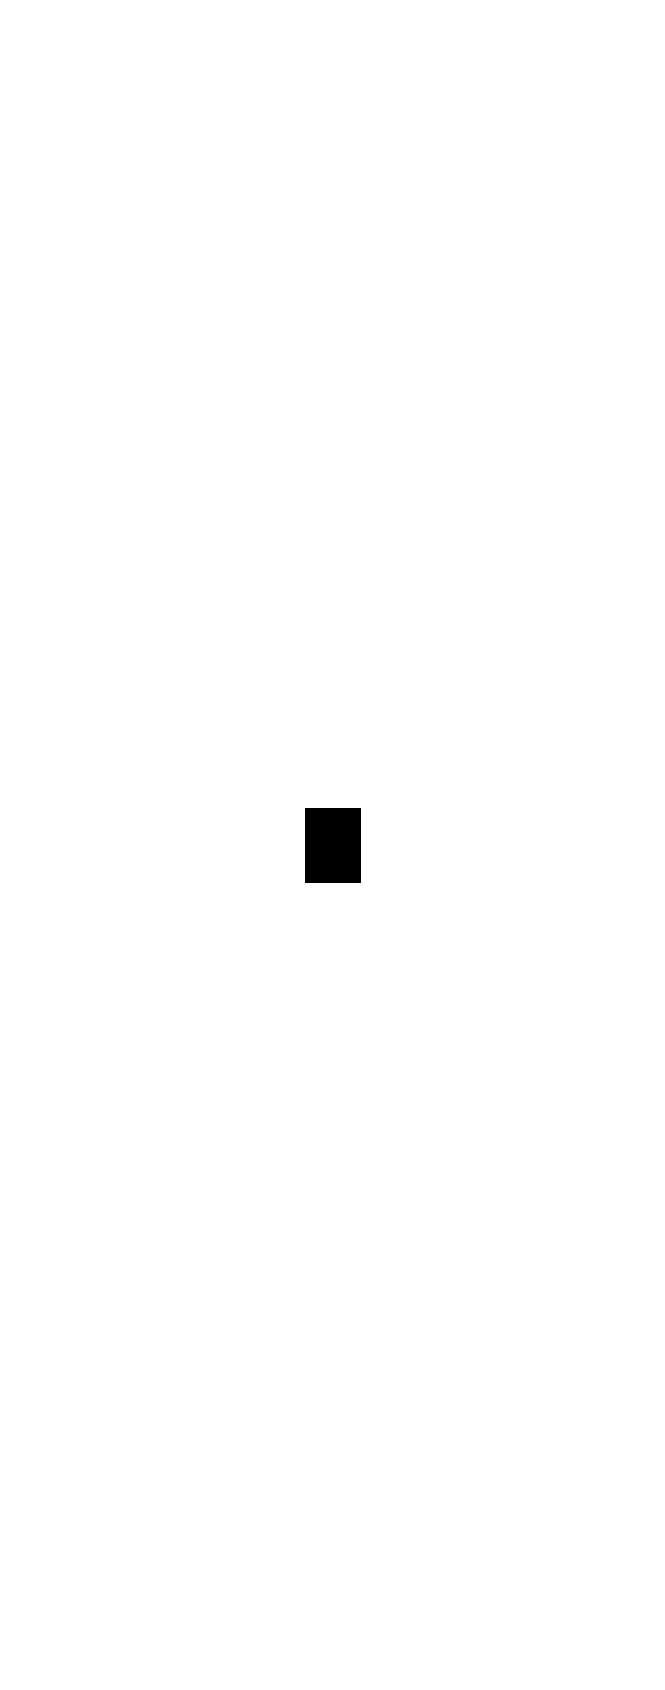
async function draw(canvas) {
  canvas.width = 665;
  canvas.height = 1690;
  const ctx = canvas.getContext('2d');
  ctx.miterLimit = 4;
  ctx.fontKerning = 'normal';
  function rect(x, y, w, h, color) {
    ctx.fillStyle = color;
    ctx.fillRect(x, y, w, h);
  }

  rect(0, 0, 665, 1690, '#fff');
  rect(305, 808, 56, 75, '#000');
}

draw(document.querySelector('canvas'));
